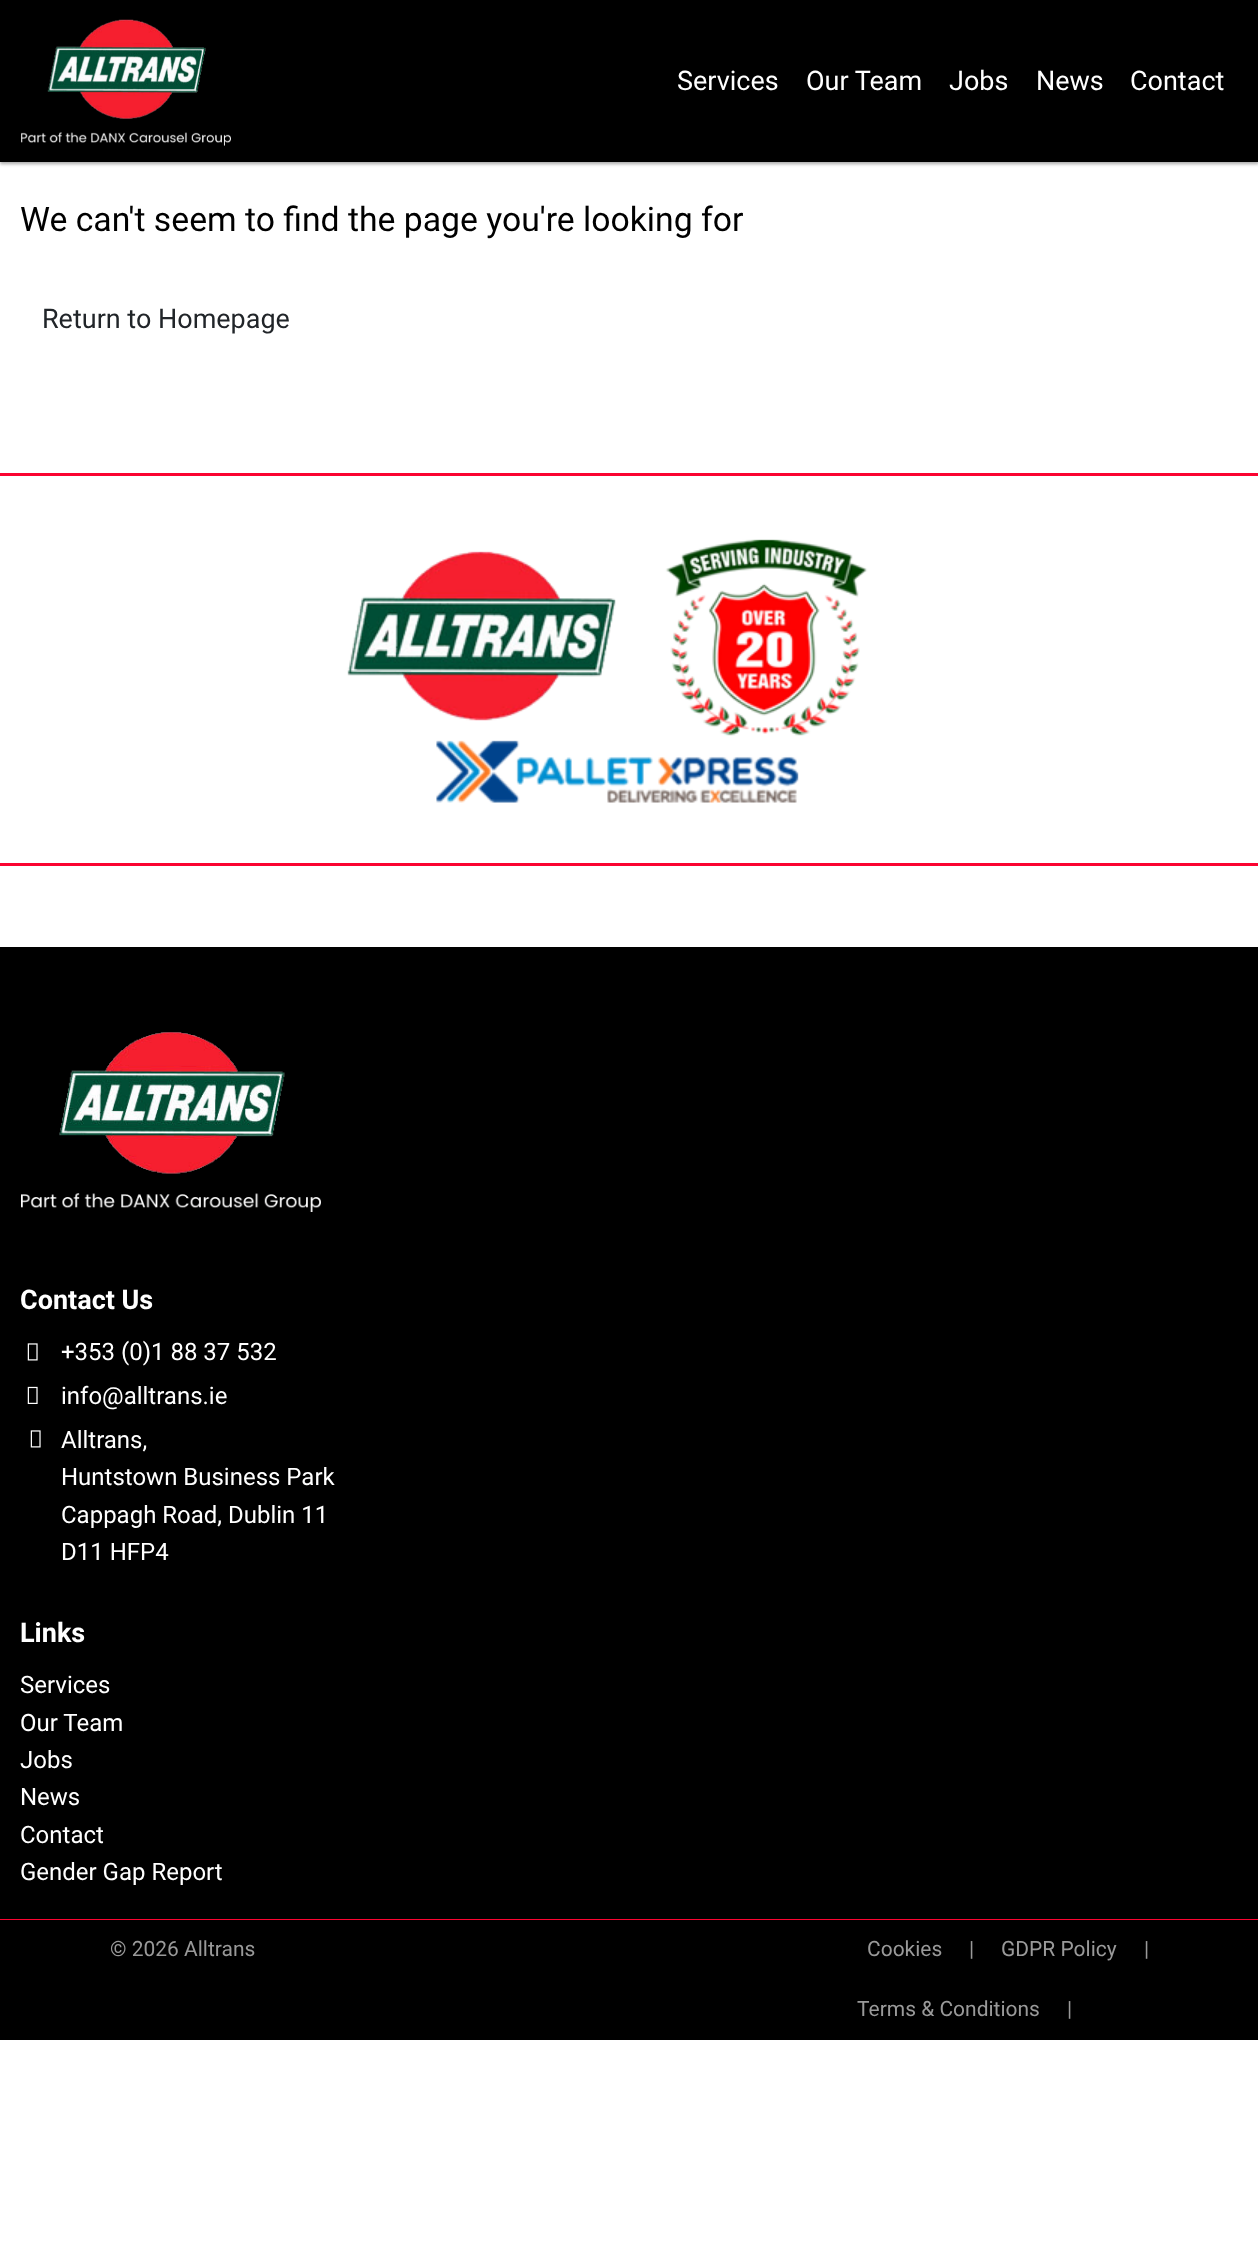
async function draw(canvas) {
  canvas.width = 1258;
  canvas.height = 2263;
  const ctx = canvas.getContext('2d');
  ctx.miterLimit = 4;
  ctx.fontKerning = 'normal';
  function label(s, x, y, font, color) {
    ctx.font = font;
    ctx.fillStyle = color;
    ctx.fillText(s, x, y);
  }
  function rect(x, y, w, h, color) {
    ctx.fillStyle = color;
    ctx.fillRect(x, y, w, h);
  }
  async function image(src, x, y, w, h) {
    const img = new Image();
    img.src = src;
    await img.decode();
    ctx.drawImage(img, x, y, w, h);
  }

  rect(0, 0, 1258, 2263, '#fff');
  ctx.fillStyle = '#0000003d';
  ctx.filter = 'blur(1.5px)';
  ctx.beginPath();
  ctx.rect(0, 2, 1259, 162);
  ctx.fill();
  ctx.filter = 'none';
  ctx.fillStyle = '#0000001f';
  ctx.filter = 'blur(2px)';
  ctx.beginPath();
  ctx.rect(0, 2, 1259, 162);
  ctx.fill();
  ctx.filter = 'none';
  rect(0, 0, 1258, 162, '#000');
  await image('assets/img1.png', 21, 19, 210, 127);
  label('Services', 677, 90, '27px Roboto', '#fff');
  label('Our Team', 806, 90, '27px Roboto', '#fff');
  label('Jobs', 949, 90, '27px Roboto', '#fff');
  label('News', 1036, 90, '27px Roboto', '#fff');
  label('Contact', 1130, 90, '27px Roboto', '#fff');
  label('We can\'t seem to find the page you\'re looking for', 20, 231, '33.75px Roboto', '#000');
  label('Return to Homepage', 42, 328, '27px Roboto', '#212529');
  rect(0, 473, 1258, 3, '#fb0431');
  rect(0, 863, 1258, 3, '#fb0431');
  await image('assets/img2.png', 347, 539, 521, 264);
  rect(0, 947, 1258, 972, '#000');
  rect(0, 1919, 1258, 1, '#fb0431');
  await image('assets/img3.png', 21, 1032, 300, 180);
  label('Contact Us', 20, 1309, 'bold 27px Roboto', '#fff');
  await image('assets/img4.png', 27, 1343, 11, 18);
  label('+353 (0)1 88 37 532', 61, 1360, '24px Roboto', '#fff');
  await image('assets/img5.png', 27, 1386, 11, 18);
  label('info@alltrans.ie', 61, 1404, '24px Roboto', '#fff');
  await image('assets/img4.png', 30, 1430, 11, 18);
  label('Alltrans,', 61, 1448, '24px Roboto', '#fff');
  label('Huntstown Business Park', 61, 1485, '24px Roboto', '#fff');
  label('Cappagh Road, Dublin 11', 61, 1523, '24px Roboto', '#fff');
  label('D11 HFP4', 61, 1560, '24px Roboto', '#fff');
  label('Links', 20, 1642, 'bold 27px Roboto', '#fff');
  label('Services', 20, 1693, '24px Roboto', '#fff');
  label('Our Team', 20, 1731, '24px Roboto', '#fff');
  label('Jobs', 20, 1768, '24px Roboto', '#fff');
  label('News', 20, 1805, '24px Roboto', '#fff');
  label('Contact', 20, 1843, '24px Roboto', '#fff');
  label('Gender Gap Report', 20, 1880, '24px Roboto', '#fff');
  rect(0, 1920, 1258, 120, '#000');
  label('© 2026 Alltrans', 110, 1956, '21px Roboto', '#999');
  label('Cookies', 867, 1956, '21px Roboto', '#999');
  label('|', 969, 1956, '21px Roboto', '#999');
  label('GDPR Policy', 1001, 1956, '21px Roboto', '#999');
  label('|', 1144, 1956, '21px Roboto', '#999');
  label('Terms & Conditions', 857, 2016, '21px Roboto', '#999');
  label('|', 1067, 2016, '21px Roboto', '#999');
}

draw(document.querySelector('canvas'));
